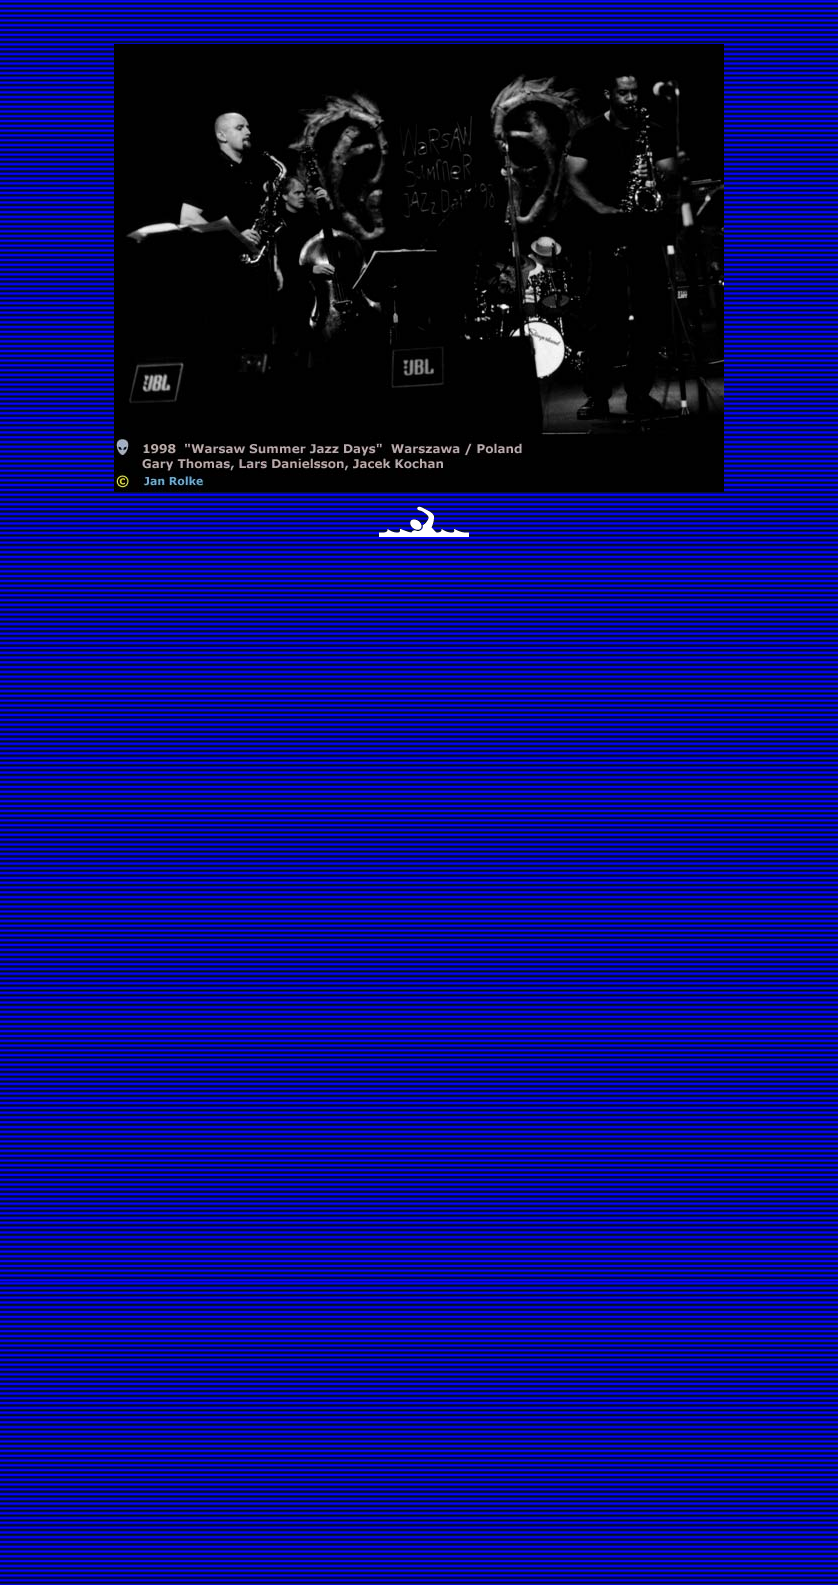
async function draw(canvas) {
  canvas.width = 838;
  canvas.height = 1585;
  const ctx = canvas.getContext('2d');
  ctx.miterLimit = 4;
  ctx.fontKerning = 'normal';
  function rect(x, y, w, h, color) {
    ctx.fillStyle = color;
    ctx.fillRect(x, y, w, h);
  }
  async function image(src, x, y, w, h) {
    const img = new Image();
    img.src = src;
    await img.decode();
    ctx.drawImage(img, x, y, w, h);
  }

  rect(0, 0, 838, 1585, '#fff');
  await image('assets/img1.png', 0, 0, 838, 1585);
  await image('assets/img2.png', 114, 44, 610, 448);
  await image('assets/img3.png', 379, 506, 90, 31);
}

draw(document.querySelector('canvas'));
